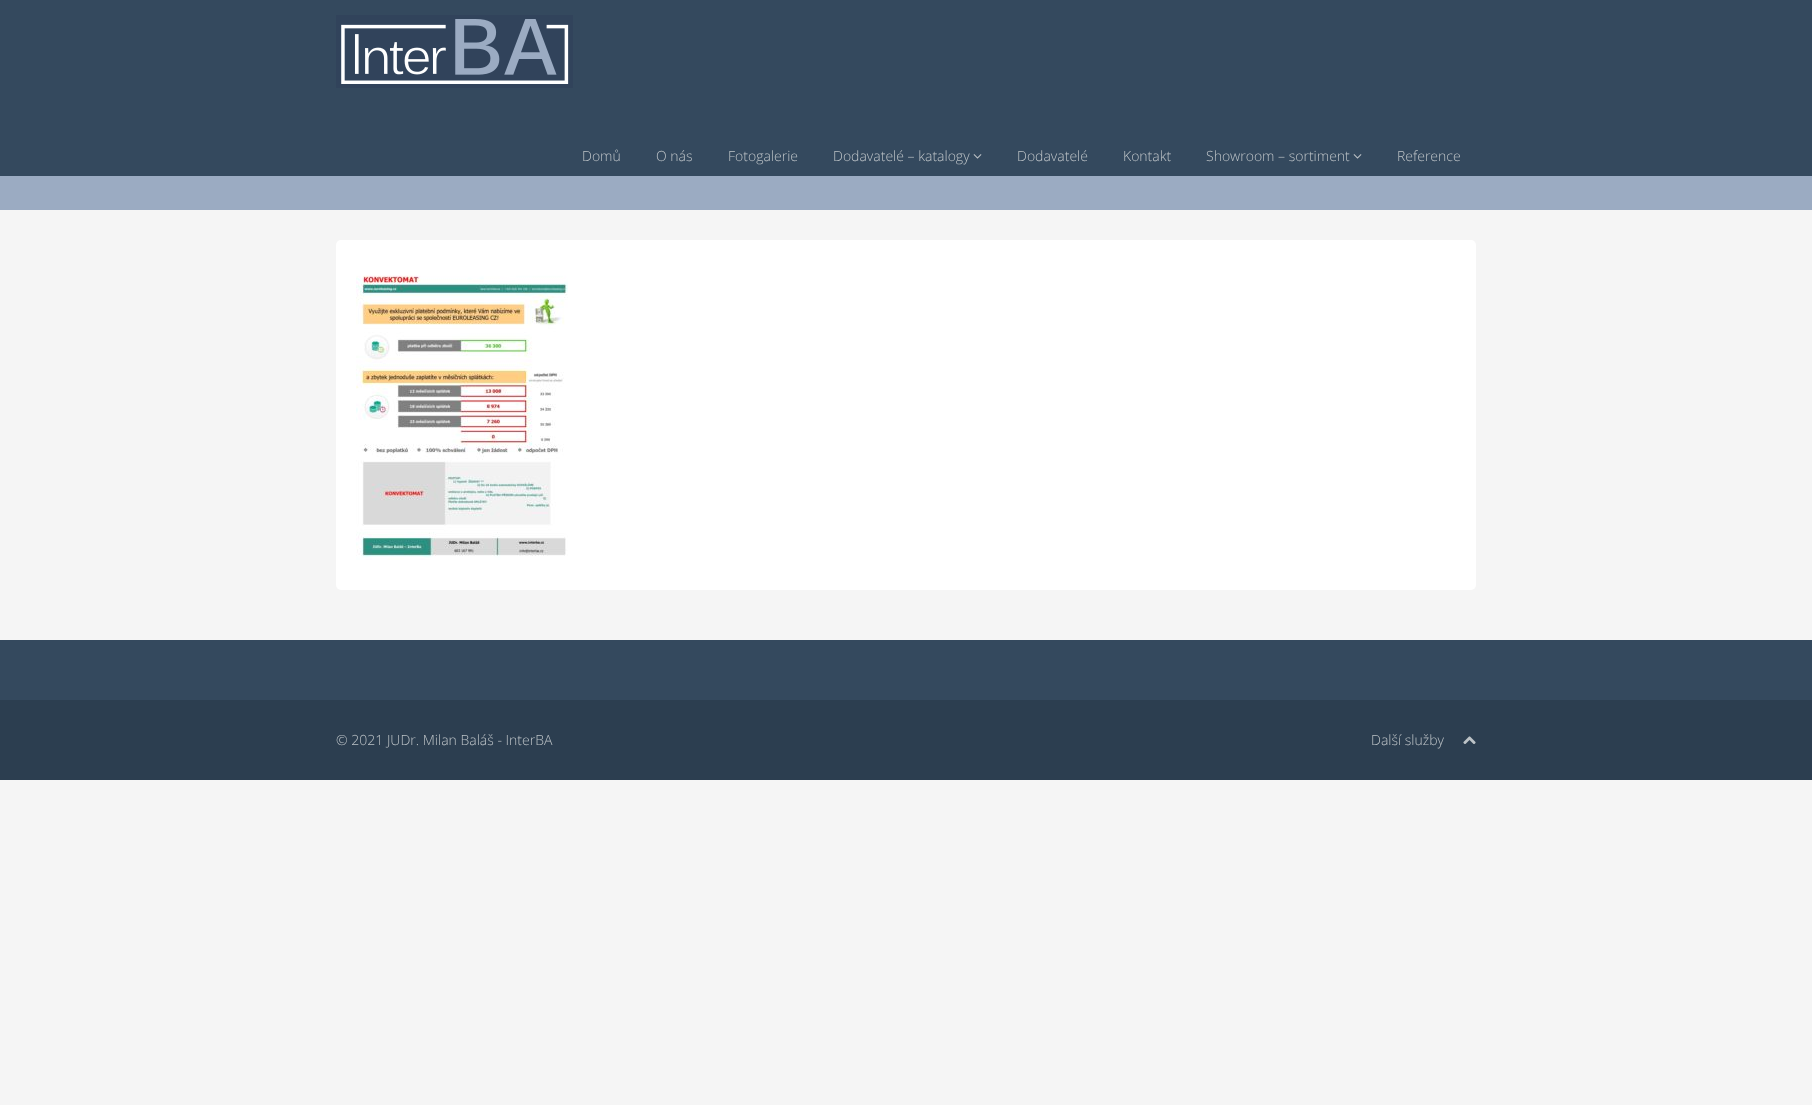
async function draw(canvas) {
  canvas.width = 1812;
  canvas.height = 1105;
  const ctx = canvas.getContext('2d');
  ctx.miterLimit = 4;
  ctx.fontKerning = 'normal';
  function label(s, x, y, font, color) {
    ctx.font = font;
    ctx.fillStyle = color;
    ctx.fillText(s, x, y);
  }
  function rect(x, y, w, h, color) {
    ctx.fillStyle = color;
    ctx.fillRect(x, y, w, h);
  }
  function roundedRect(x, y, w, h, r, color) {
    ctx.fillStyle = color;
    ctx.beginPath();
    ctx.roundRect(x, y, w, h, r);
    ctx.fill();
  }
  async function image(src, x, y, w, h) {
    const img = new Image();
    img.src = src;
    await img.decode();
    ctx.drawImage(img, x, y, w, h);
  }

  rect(0, 0, 1812, 1105, '#f5f5f5');
  rect(0, 0, 1812, 176, '#34495e');
  await image('assets/img1.png', 336, 15, 237, 73);
  label('Domů', 582, 161, '300 14px Open Sans', '#bdc3c7');
  label('O nás', 656, 161, '300 14px Open Sans', '#bdc3c7');
  label('Fotogalerie', 728, 161, '300 14px Open Sans', '#bdc3c7');
  label('Dodavatelé – katalogy', 833, 161, '300 14px Open Sans', '#bdc3c7');
  await image('assets/img2.png', 973, 154, 9, 5);
  label('Dodavatelé', 1017, 161, '300 14px Open Sans', '#bdc3c7');
  label('Kontakt', 1123, 161, '300 14px Open Sans', '#bdc3c7');
  label('Showroom – sortiment', 1206, 161, '300 14px Open Sans', '#bdc3c7');
  await image('assets/img2.png', 1353, 154, 9, 5);
  label('Reference', 1397, 161, '300 14px Open Sans', '#bdc3c7');
  rect(0, 176, 1812, 34, '#9babc2');
  roundedRect(336, 240, 1140, 350, 5, '#fff');
  await image('assets/img3.png', 356, 275, 212, 285);
  rect(0, 640, 1812, 60, '#34495e');
  rect(0, 700, 1812, 80, '#2c3e50');
  label('© 2021 JUDr. Milan Baláš - InterBA', 336, 745, '300 14px Open Sans', '#bdc3c7');
  label('Další služby', 1371, 745, '300 14px Open Sans', '#bdc3c7');
  await image('assets/img4.png', 1463, 736, 13, 8);
}

draw(document.querySelector('canvas'));
